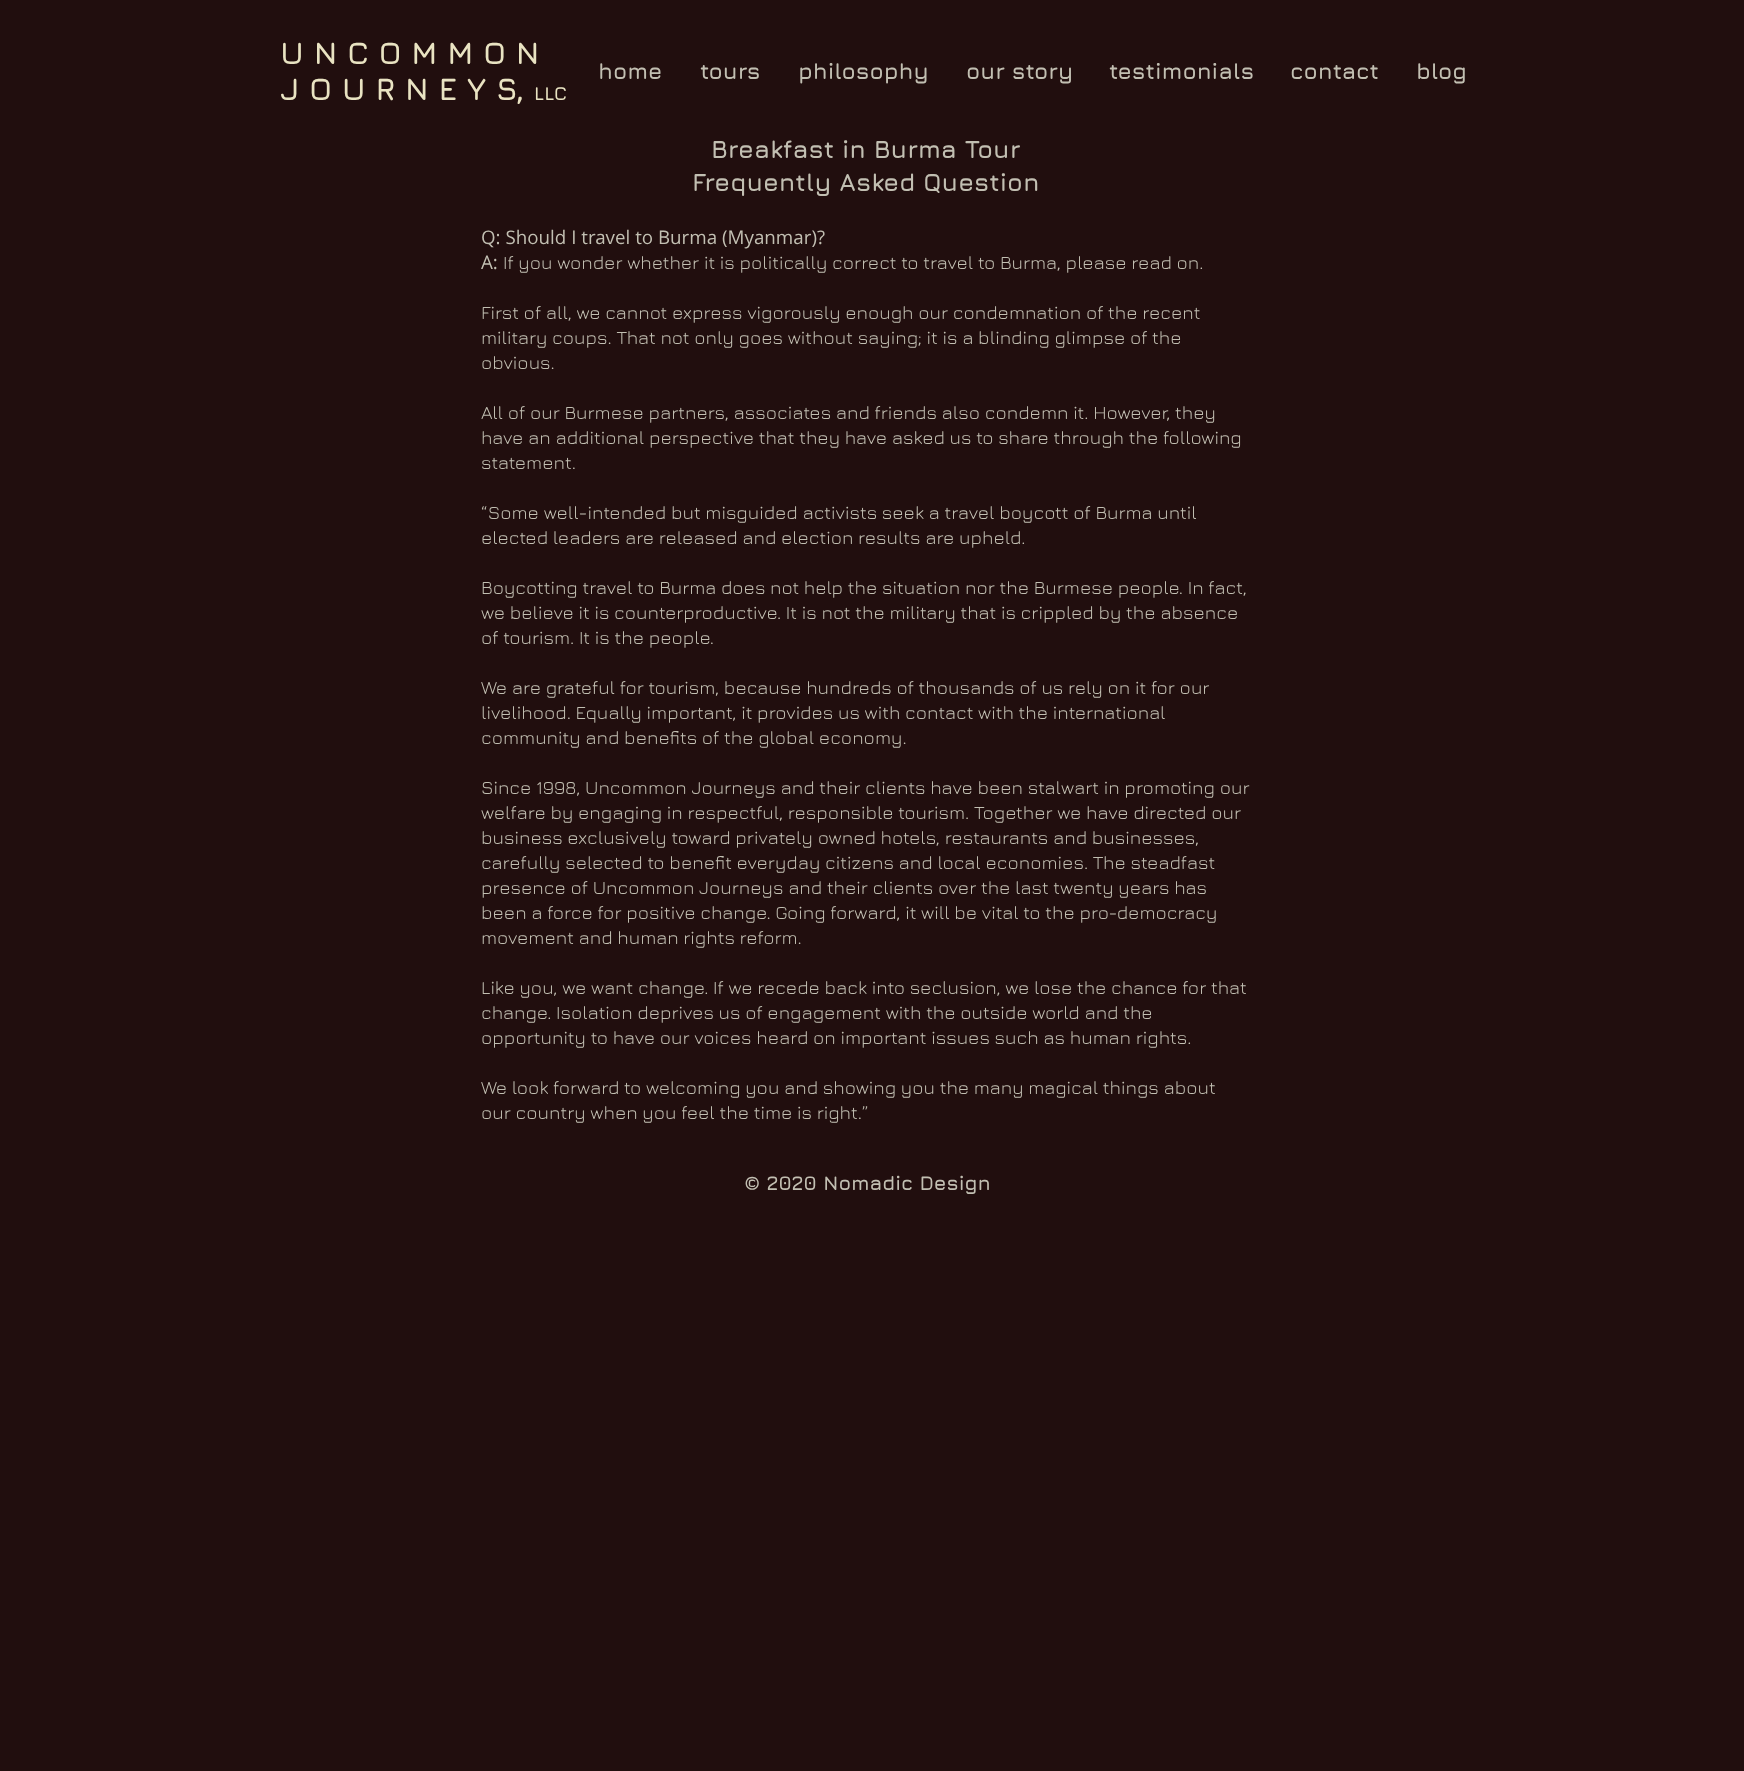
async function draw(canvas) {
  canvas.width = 1744;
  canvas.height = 1771;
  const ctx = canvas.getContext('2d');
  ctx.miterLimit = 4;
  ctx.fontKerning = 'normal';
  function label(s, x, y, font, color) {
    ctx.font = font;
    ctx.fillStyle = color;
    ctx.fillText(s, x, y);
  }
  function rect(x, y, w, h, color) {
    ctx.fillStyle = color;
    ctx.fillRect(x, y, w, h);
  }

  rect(0, 0, 1744, 1771, '#210e0e');
  label('U N C O M M O N', 280, 64, 'bold 31.25px Jura', '#e9e3c2');
  label('J O U R N E Y S,', 280, 100, 'bold 31.25px Jura', '#e9e3c2');
  label('LLC', 534, 100, 'bold 18.75px Jura', '#e9e3c2');
  label('home', 598, 79, 'bold 22.5px Jura', '#c2bfb2');
  label('tours', 700, 79, 'bold 22.5px Jura', '#c2bfb2');
  label('philosophy', 798, 79, 'bold 22.5px Jura', '#c2bfb2');
  label('our story', 966, 79, 'bold 22.5px Jura', '#c2bfb2');
  label('testimonials', 1109, 79, 'bold 22.5px Jura', '#c2bfb2');
  label('contact', 1290, 79, 'bold 22.5px Jura', '#c2bfb2');
  label('blog', 1416, 79, 'bold 22.5px Jura', '#c2bfb2');
  label('Breakfast in Burma Tour', 711, 158, 'bold 25px Jura', '#c2bfb2');
  label('Frequently Asked Question', 692, 191, 'bold 25px Jura', '#c2bfb2');
  label('Q: Should I travel to Burma (Myanmar)?', 481, 244, '18.75px Open Sans', '#c2bfb2');
  label('A:', 481, 269, '18.75px Open Sans', '#c2bfb2');
  label('If you wonder whether it is politically correct to travel to Burma, please read on.', 503, 269, '18.75px Jura', '#c2bfb2');
  label('First of all, we cannot express vigorously enough our condemnation of the recent', 481, 319, '18.75px Jura', '#c2bfb2');
  label('military coups. That not only goes without saying; it is a blinding glimpse of the', 481, 344, '18.75px Jura', '#c2bfb2');
  label('obvious.', 481, 369, '18.75px Jura', '#c2bfb2');
  label('All of our Burmese partners, associates and friends also condemn it. However, they', 481, 419, '18.75px Jura', '#c2bfb2');
  label('have an additional perspective that they have asked us to share through the following', 481, 444, '18.75px Jura', '#c2bfb2');
  label('statement.', 481, 469, '18.75px Jura', '#c2bfb2');
  label('“Some well-intended but misguided activists seek a travel boycott of Burma until', 481, 519, '18.75px Jura', '#c2bfb2');
  label('elected leaders are released and election results are upheld.', 481, 544, '18.75px Jura', '#c2bfb2');
  label('Boycotting travel to Burma does not help the situation nor the Burmese people. In fact,', 481, 594, '18.75px Jura', '#c2bfb2');
  label('we believe it is counterproductive. It is not the military that is crippled by the absence', 481, 619, '18.75px Jura', '#c2bfb2');
  label('of tourism. It is the people.', 481, 644, '18.75px Jura', '#c2bfb2');
  label('We are grateful for tourism, because hundreds of thousands of us rely on it for our', 481, 694, '18.75px Jura', '#c2bfb2');
  label('livelihood. Equally important, it provides us with contact with the international', 481, 719, '18.75px Jura', '#c2bfb2');
  label('community and benefits of the global economy.', 481, 744, '18.75px Jura', '#c2bfb2');
  label('Since 1998, Uncommon Journeys and their clients have been stalwart in promoting our', 481, 794, '18.75px Jura', '#c2bfb2');
  label('welfare by engaging in respectful, responsible tourism. Together we have directed our', 481, 819, '18.75px Jura', '#c2bfb2');
  label('business exclusively toward privately owned hotels, restaurants and businesses,', 481, 844, '18.75px Jura', '#c2bfb2');
  label('carefully selected to benefit everyday citizens and local economies. The steadfast', 481, 869, '18.75px Jura', '#c2bfb2');
  label('presence of Uncommon Journeys and their clients over the last twenty years has', 481, 894, '18.75px Jura', '#c2bfb2');
  label('been a force for positive change. Going forward, it will be vital to the pro-democracy', 481, 919, '18.75px Jura', '#c2bfb2');
  label('movement and human rights reform.', 481, 944, '18.75px Jura', '#c2bfb2');
  label('Like you, we want change. If we recede back into seclusion, we lose the chance for that', 481, 994, '18.75px Jura', '#c2bfb2');
  label('change. Isolation deprives us of engagement with the outside world and the', 481, 1019, '18.75px Jura', '#c2bfb2');
  label('opportunity to have our voices heard on important issues such as human rights.', 481, 1044, '18.75px Jura', '#c2bfb2');
  label('We look forward to welcoming you and showing you the many magical things about', 481, 1094, '18.75px Jura', '#c2bfb2');
  label('our country when you feel the time is right.”', 481, 1119, '18.75px Jura', '#c2bfb2');
  label('© 2020 Nomadic Design', 744, 1190, 'bold 20px Jura', '#c2bfb2');
}

draw(document.querySelector('canvas'));
